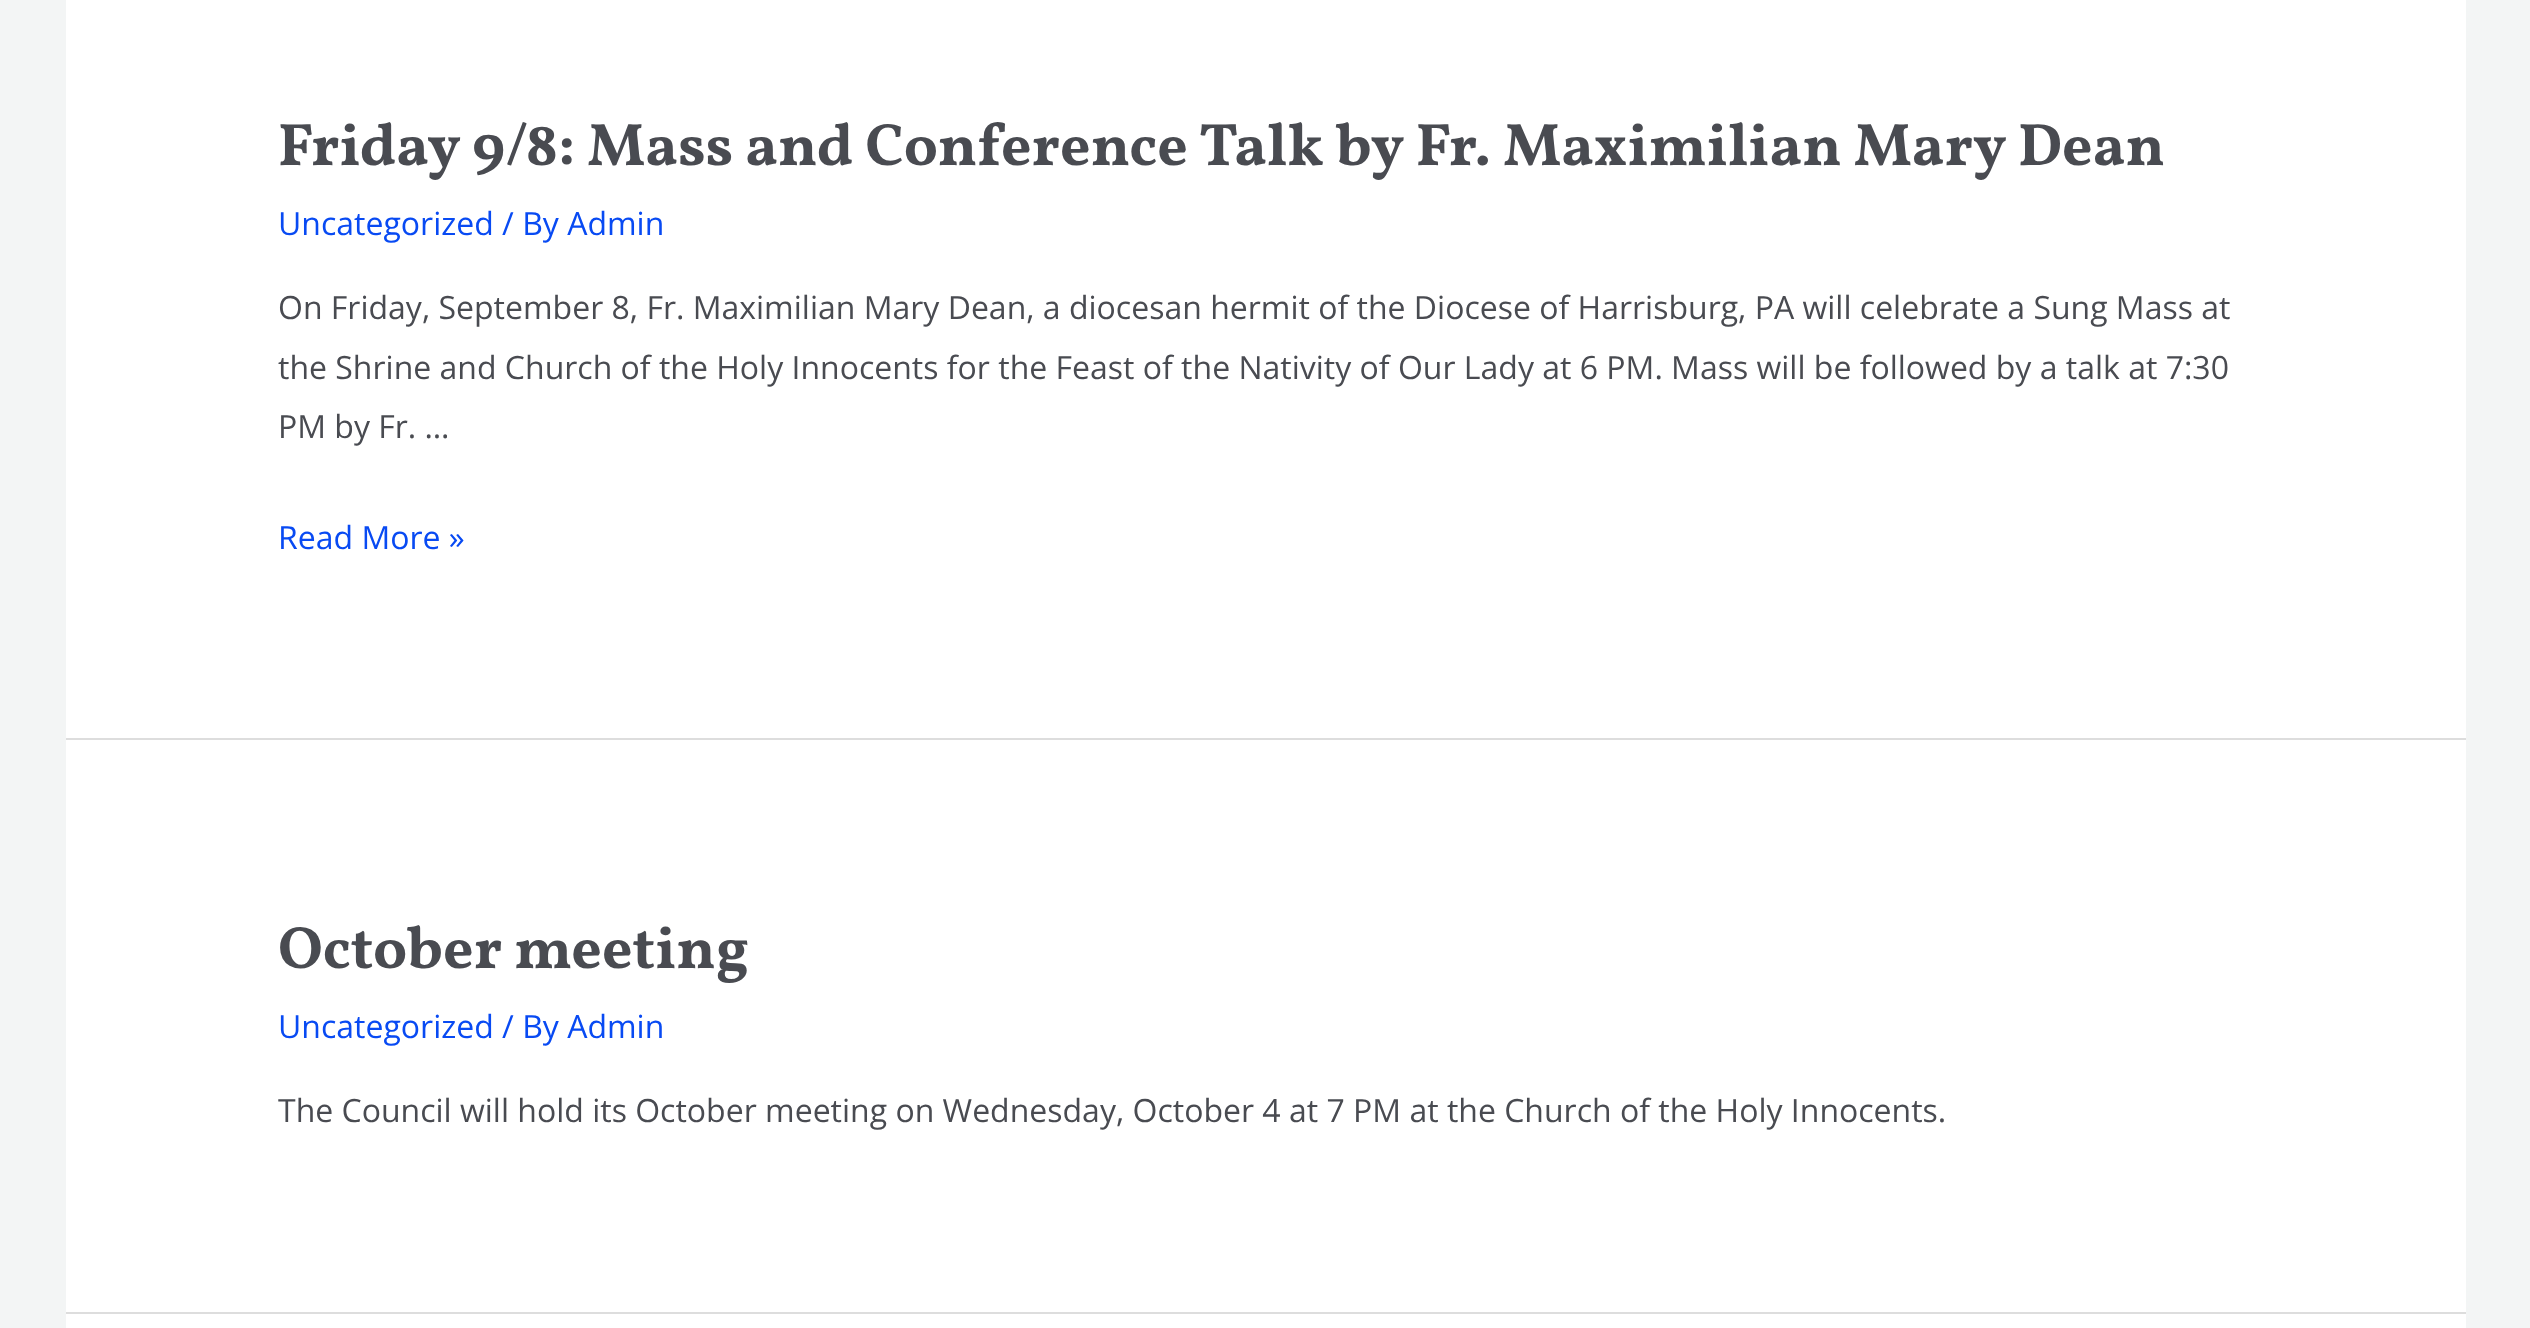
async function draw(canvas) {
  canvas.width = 2530;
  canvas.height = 1328;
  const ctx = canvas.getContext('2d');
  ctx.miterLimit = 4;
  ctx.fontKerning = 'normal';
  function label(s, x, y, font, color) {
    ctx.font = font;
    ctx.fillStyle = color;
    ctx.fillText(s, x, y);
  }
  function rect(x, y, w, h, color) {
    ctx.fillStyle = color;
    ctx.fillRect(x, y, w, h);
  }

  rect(0, 0, 2530, 1328, '#f3f5f5');
  rect(66, 0, 2400, 738, '#fff');
  rect(66, 738, 2400, 2, '#ddd');
  label('Friday 9/8: Mass and Conference Talk by Fr. Maximilian Mary Dean', 278, 165, 'bold 60px Vollkorn', '#494b51');
  label('Uncategorized / By Admin', 278, 235, '32px Open Sans', '#084af3');
  label('On Friday, September 8, Fr. Maximilian Mary Dean, a diocesan hermit of the Diocese of Harrisburg, PA will celebrate a Sung Mass at', 278, 319, '32px Open Sans', '#494b51');
  label('the Shrine and Church of the Holy Innocents for the Feast of the Nativity of Our Lady at 6 PM. Mass will be followed by a talk at 7:30', 278, 379, '32px Open Sans', '#494b51');
  label('PM by Fr. …', 278, 438, '32px Open Sans', '#494b51');
  label('Read More »', 278, 549, '32px Open Sans', '#084af3');
  rect(66, 740, 2400, 572, '#fff');
  rect(66, 1312, 2400, 2, '#ddd');
  label('October meeting', 278, 968, 'bold 60px Vollkorn', '#494b51');
  label('Uncategorized / By Admin', 278, 1038, '32px Open Sans', '#084af3');
  label('The Council will hold its October meeting on Wednesday, October 4 at 7 PM at the Church of the Holy Innocents.', 278, 1122, '32px Open Sans', '#494b51');
  rect(66, 1314, 2400, 14, '#fff');
}

draw(document.querySelector('canvas'));
